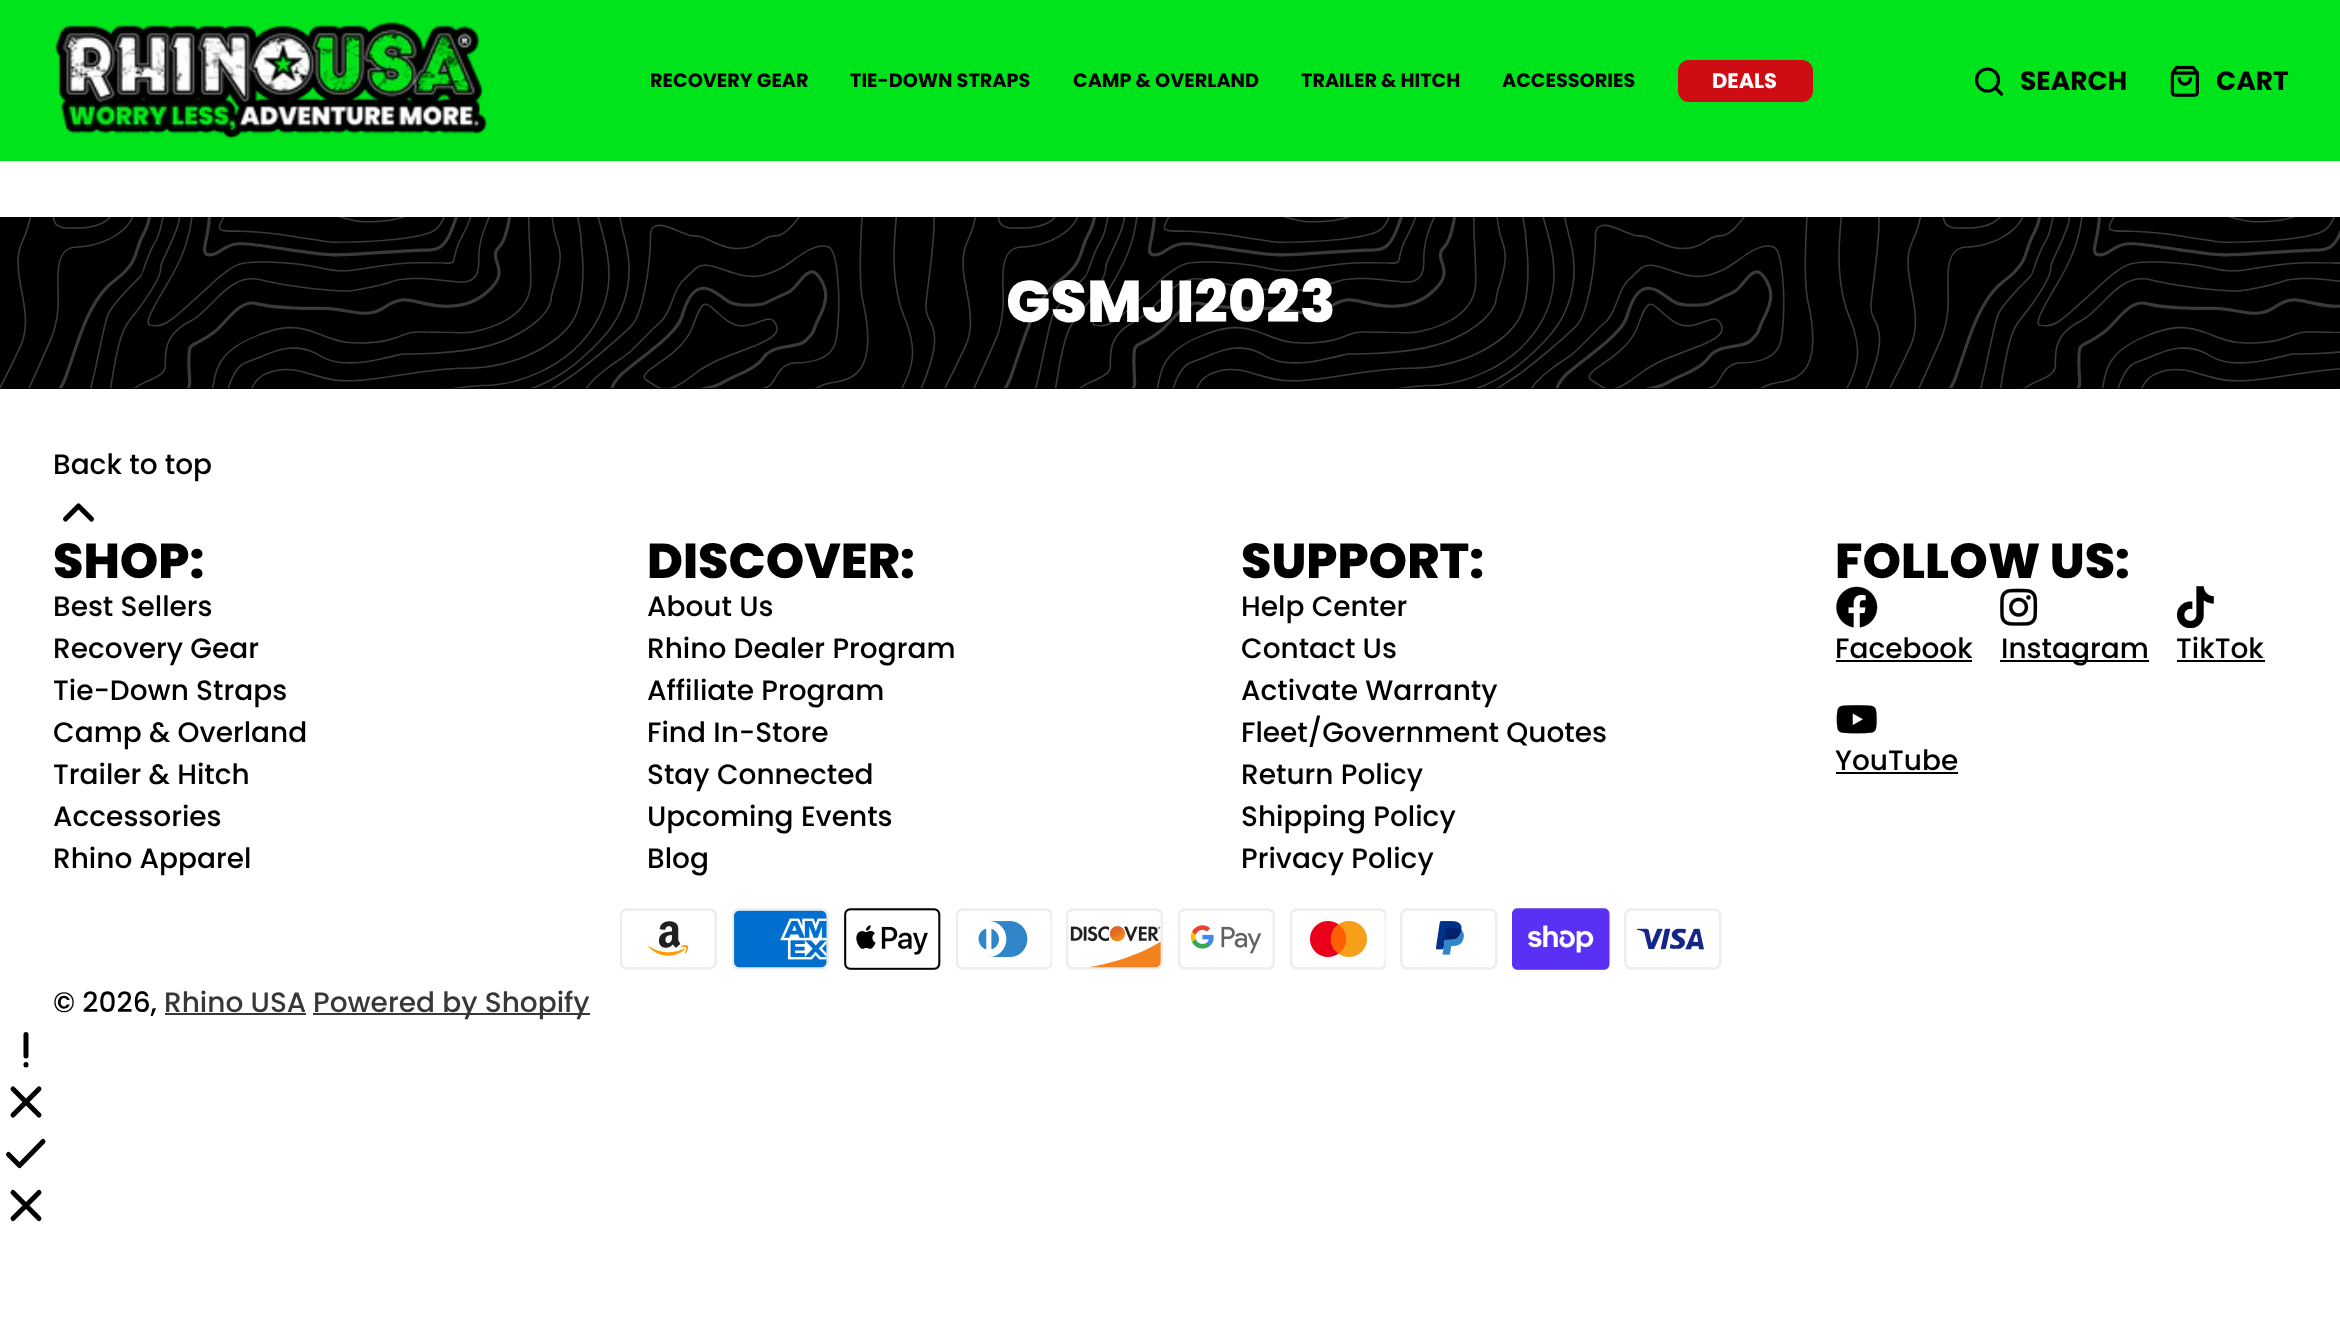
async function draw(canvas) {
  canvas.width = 2340;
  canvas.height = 1336;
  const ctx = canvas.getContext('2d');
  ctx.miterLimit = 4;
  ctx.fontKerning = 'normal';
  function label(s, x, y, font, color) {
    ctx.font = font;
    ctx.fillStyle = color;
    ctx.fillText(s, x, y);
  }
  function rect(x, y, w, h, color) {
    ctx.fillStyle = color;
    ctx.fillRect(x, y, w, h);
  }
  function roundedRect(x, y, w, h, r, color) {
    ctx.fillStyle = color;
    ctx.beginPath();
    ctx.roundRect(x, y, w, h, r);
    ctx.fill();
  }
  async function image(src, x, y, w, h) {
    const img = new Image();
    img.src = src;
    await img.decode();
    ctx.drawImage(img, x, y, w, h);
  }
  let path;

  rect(0, 0, 2340, 1336, '#fff');
  rect(0, 0, 2340, 161, '#00e41b');
  await image('assets/img1.png', 55, 22, 432, 117);
  label('RECOVERY GEAR', 650, 87, 'bold 19.25px Poppins', '#000');
  label('TIE-DOWN STRAPS', 850, 87, 'bold 19.25px Poppins', '#000');
  label('CAMP & OVERLAND', 1073, 87, 'bold 19.25px Poppins', '#000');
  label('TRAILER & HITCH', 1301, 87, 'bold 19.25px Poppins', '#000');
  label('ACCESSORIES', 1502, 87, 'bold 19.25px Poppins', '#000');
  roundedRect(1678, 60, 135, 42, 11, '#cd0d13');
  label('DEALS', 1712, 88, 'bold 21px Poppins', '#fff');
  ctx.beginPath();
  ctx.arc(1987.5, 80, 11, 0, 2 * Math.PI);
  ctx.strokeStyle = '#000';
  ctx.lineWidth = 3.2;
  ctx.stroke();
  path = new Path2D('M2001.5 94L1995.5 88');
  ctx.lineCap = 'round';
  ctx.lineJoin = 'round';
  ctx.stroke(path);
  label('SEARCH', 2020, 90, 'bold 26.5px Poppins', '#000');
  await image('assets/img2.png', 2170, 65, 29, 32);
  label('CART', 2216, 90, 'bold 26.5px Poppins', '#000');
  rect(0, 217, 2340, 172, '#000');
  await image('assets/img3.png', 0, 217, 2340, 172);
  label('GSMJI2023', 1006, 322, '800 58.75px Poppins', '#fff');
  label('Back to top', 53, 474, '500 28px Poppins', '#000');
  path = new Path2D('M91.5 519L78.5 506L65.5 519');
  ctx.lineWidth = 5;
  ctx.stroke(path);
  label('SHOP:', 53, 578, '800 49px Poppins', '#000');
  label('Best Sellers', 53, 616, '500 28px Poppins', '#000');
  label('Recovery Gear', 53, 658, '500 28px Poppins', '#000');
  label('Tie-Down Straps', 53, 700, '500 28px Poppins', '#000');
  label('Camp & Overland', 53, 742, '500 28px Poppins', '#000');
  label('Trailer & Hitch', 53, 784, '500 28px Poppins', '#000');
  label('Accessories', 53, 826, '500 28px Poppins', '#000');
  label('Rhino Apparel', 53, 868, '500 28px Poppins', '#000');
  label('DISCOVER:', 647, 578, '800 49px Poppins', '#000');
  label('About Us', 647, 616, '500 28px Poppins', '#000');
  label('Rhino Dealer Program', 647, 658, '500 28px Poppins', '#000');
  label('Affiliate Program', 647, 700, '500 28px Poppins', '#000');
  label('Find In-Store', 647, 742, '500 28px Poppins', '#000');
  label('Stay Connected', 647, 784, '500 28px Poppins', '#000');
  label('Upcoming Events', 647, 826, '500 28px Poppins', '#000');
  label('Blog', 647, 868, '500 28px Poppins', '#000');
  label('SUPPORT:', 1241, 578, '800 49px Poppins', '#000');
  label('Help Center', 1241, 616, '500 28px Poppins', '#000');
  label('Contact Us', 1241, 658, '500 28px Poppins', '#000');
  label('Activate Warranty', 1241, 700, '500 28px Poppins', '#000');
  label('Fleet/Government Quotes', 1241, 742, '500 28px Poppins', '#000');
  label('Return Policy', 1241, 784, '500 28px Poppins', '#000');
  label('Shipping Policy', 1241, 826, '500 28px Poppins', '#000');
  label('Privacy Policy', 1241, 868, '500 28px Poppins', '#000');
  label('FOLLOW US:', 1835, 578, '800 49px Poppins', '#000');
  await image('assets/img4.png', 1836, 586, 42, 42);
  label('Facebook', 1835, 658, '500 28px Poppins', '#000');
  rect(1836, 660, 136, 2, '#000');
  await image('assets/img5.png', 2000, 588, 38, 38);
  rect(2000, 660, 149, 2, '#000');
  label('Instagram', 2001, 658, '500 28px Poppins', '#000');
  await image('assets/img6.png', 2177, 586, 37, 42);
  label('TikTok', 2176, 658, '500 28px Poppins', '#000');
  rect(2177, 660, 88, 2, '#000');
  await image('assets/img7.png', 1836, 705, 41, 29);
  label('YouTube', 1835, 770, '500 28px Poppins', '#000');
  rect(1836, 772, 122, 2, '#000');
  await image('assets/img8.png', 620, 908, 97, 62);
  await image('assets/img9.png', 732, 908, 97, 62);
  await image('assets/img10.png', 844, 908, 97, 62);
  await image('assets/img11.png', 956, 908, 96, 62);
  await image('assets/img12.png', 1066, 908, 97, 62);
  await image('assets/img13.png', 1178, 908, 97, 62);
  await image('assets/img14.png', 1290, 908, 96, 62);
  await image('assets/img15.png', 1400, 908, 98, 62);
  await image('assets/img16.png', 1512, 908, 98, 62);
  await image('assets/img17.png', 1624, 908, 98, 62);
  label('© 2026,', 53, 1012, '500 28px Poppins', '#000');
  label('Rhino USA', 164, 1012, '500 28px Poppins', '#383838');
  rect(165, 1013, 141, 2, '#383838');
  rect(313, 1013, 277, 2, '#383838');
  label('Powered by Shopify', 313, 1012, '500 28px Poppins', '#383838');
  path = new Path2D('M26 1064.5V1065M26 1056V1034.5');
  ctx.stroke(path);
  path = new Path2D('M39 1089L13 1115M13 1089L39 1115');
  ctx.stroke(path);
  path = new Path2D('M43 1141.5L19.5 1165.5L8.5 1154.5');
  ctx.stroke(path);
  path = new Path2D('M39 1192.5L13 1218.5M13 1192.5L39 1218.5');
  ctx.stroke(path);
}

draw(document.querySelector('canvas'));
